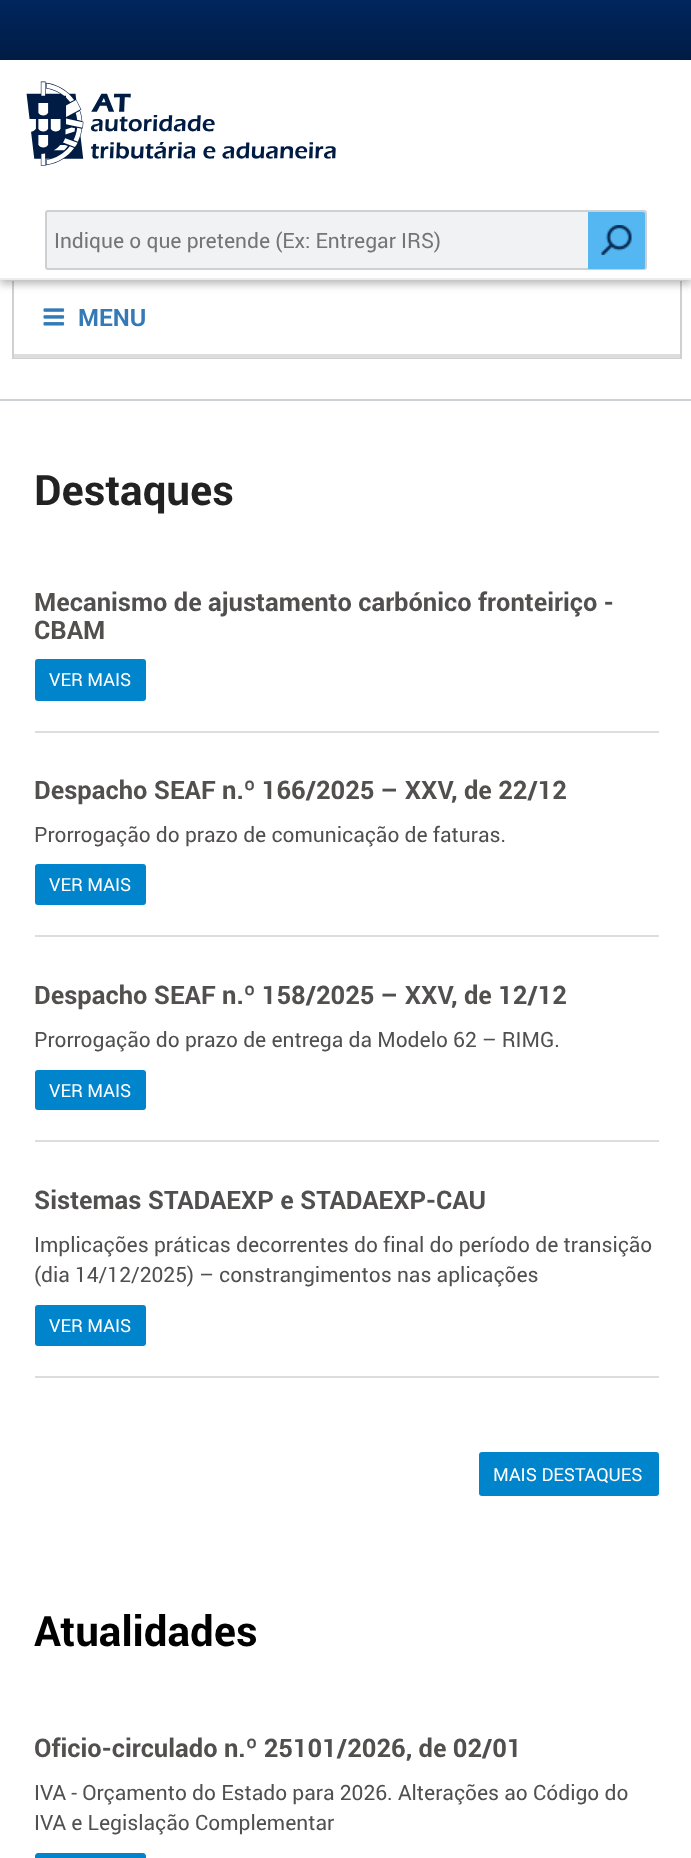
async function draw(canvas) {
  canvas.width = 691;
  canvas.height = 1858;
  const ctx = canvas.getContext('2d');
  ctx.miterLimit = 4;
  ctx.fontKerning = 'normal';
  function label(s, x, y, font, color) {
    ctx.font = font;
    ctx.fillStyle = color;
    ctx.fillText(s, x, y);
  }
  function rect(x, y, w, h, color) {
    ctx.fillStyle = color;
    ctx.fillRect(x, y, w, h);
  }
  function roundedRect(x, y, w, h, r, color) {
    ctx.fillStyle = color;
    ctx.beginPath();
    ctx.roundRect(x, y, w, h, r);
    ctx.fill();
  }
  async function image(src, x, y, w, h) {
    const img = new Image();
    img.src = src;
    await img.decode();
    ctx.drawImage(img, x, y, w, h);
  }
  let gradient, path;

  rect(0, 0, 691, 1858, '#fff');
  gradient = ctx.createLinearGradient(346, 0, 346, 60);
  gradient.addColorStop(0, '#00265e');
  gradient.addColorStop(1, '#001c44');
  ctx.fillStyle = gradient;
  ctx.fillRect(0, 0, 691, 59);
  rect(0, 59, 691, 1, '#001c44');
  rect(680, 281, 2, 78, '#cdd1d3');
  rect(12, 357, 669, 2, '#cdd1d3');
  rect(12, 281, 2, 78, '#cdd1d3');
  ctx.fillStyle = '#32323259';
  ctx.filter = 'blur(4px)';
  ctx.beginPath();
  ctx.rect(0, 65, 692, 219);
  ctx.fill();
  ctx.filter = 'none';
  rect(0, 60, 691, 218, '#fff');
  rect(0, 278, 691, 2, '#ececec');
  await image('assets/img1.png', 26, 81, 310, 85);
  ctx.fillStyle = '#f0f2f3';
  ctx.beginPath();
  ctx.roundRect(46, 211, 600, 58, 2);
  ctx.fill();
  ctx.strokeStyle = '#cdd1d3';
  ctx.lineWidth = 2;
  ctx.stroke();
  label('Indique o que pretende (Ex: Entregar IRS)', 54, 248, '21px Roboto', '#757575');
  ctx.fillStyle = '#54b7f2';
  ctx.beginPath();
  ctx.roundRect(588, 212, 57, 57, [0, 1.5, 1.5, 0]);
  ctx.fill();
  await image('assets/img2.png', 601, 225, 31, 30);
  rect(0, 399, 691, 2, '#cdd1d3');
  await image('assets/img3.png', 43, 308, 22, 18);
  label('MENU', 78, 326, 'bold 24px Roboto', '#337ab7');
  rect(14, 354, 666, 4, '#ddd');
  label('Destaques', 34, 505, 'bold 42px Roboto', '#222');
  label('Mecanismo de ajustamento carbónico fronteiriço -', 34, 611, 'bold 25.5px Roboto', '#524f4f');
  label('CBAM', 34, 639, 'bold 25.5px Roboto', '#524f4f');
  roundedRect(35, 659, 111, 42, 3, '#0084cc');
  label('VER MAIS', 49, 686, '18px Roboto', '#fff');
  rect(35, 731, 624, 2, '#ddd');
  label('Despacho SEAF n.º 166/2025 – XXV, de 22/12', 34, 799, 'bold 25.5px Roboto', '#524f4f');
  label('Prorrogação do prazo de comunicação de faturas.', 34, 842, '21px Roboto', '#524f4f');
  roundedRect(35, 864, 111, 41, 3, '#0084cc');
  label('VER MAIS', 49, 891, '18px Roboto', '#fff');
  rect(35, 935, 624, 2, '#ddd');
  label('Despacho SEAF n.º 158/2025 – XXV, de 12/12', 34, 1004, 'bold 25.5px Roboto', '#524f4f');
  label('Prorrogação do prazo de entrega da Modelo 62 – RIMG.', 34, 1047, '21px Roboto', '#524f4f');
  roundedRect(35, 1070, 111, 40, 3, '#0084cc');
  label('VER MAIS', 49, 1097, '18px Roboto', '#fff');
  rect(35, 1140, 624, 2, '#ddd');
  rect(35, 1376, 624, 2, '#ddd');
  label('Sistemas STADAEXP e STADAEXP-CAU', 34, 1209, 'bold 25.5px Roboto', '#524f4f');
  label('Implicações práticas decorrentes do final do período de transição', 34, 1252, '21px Roboto', '#524f4f');
  label('(dia 14/12/2025) – constrangimentos nas aplicações', 34, 1282, '21px Roboto', '#524f4f');
  roundedRect(35, 1305, 111, 41, 3, '#0084cc');
  label('VER MAIS', 49, 1332, '18px Roboto', '#fff');
  roundedRect(479, 1452, 180, 44, 3, '#0084cc');
  label('MAIS DESTAQUES', 493, 1481, '18px Roboto', '#fff');
  label('Atualidades', 34, 1646, 'bold 42px Roboto', '#000');
  label('Oficio-circulado n.º 25101/2026, de 02/01', 34, 1757, 'bold 25.5px Roboto', '#524f4f');
  label('IVA - Orçamento do Estado para 2026. Alterações ao Código do', 34, 1800, '21px Roboto', '#524f4f');
  label('IVA e Legislação Complementar', 34, 1830, '21px Roboto', '#524f4f');
  ctx.fillStyle = '#0084cc';
  path = new Path2D('M38 1853H143C144.5 1853 146 1854.5 146 1856V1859H35V1856C35 1854.5 36.5 1853 38 1853Z');
  ctx.fill(path);
}

draw(document.querySelector('canvas'));
